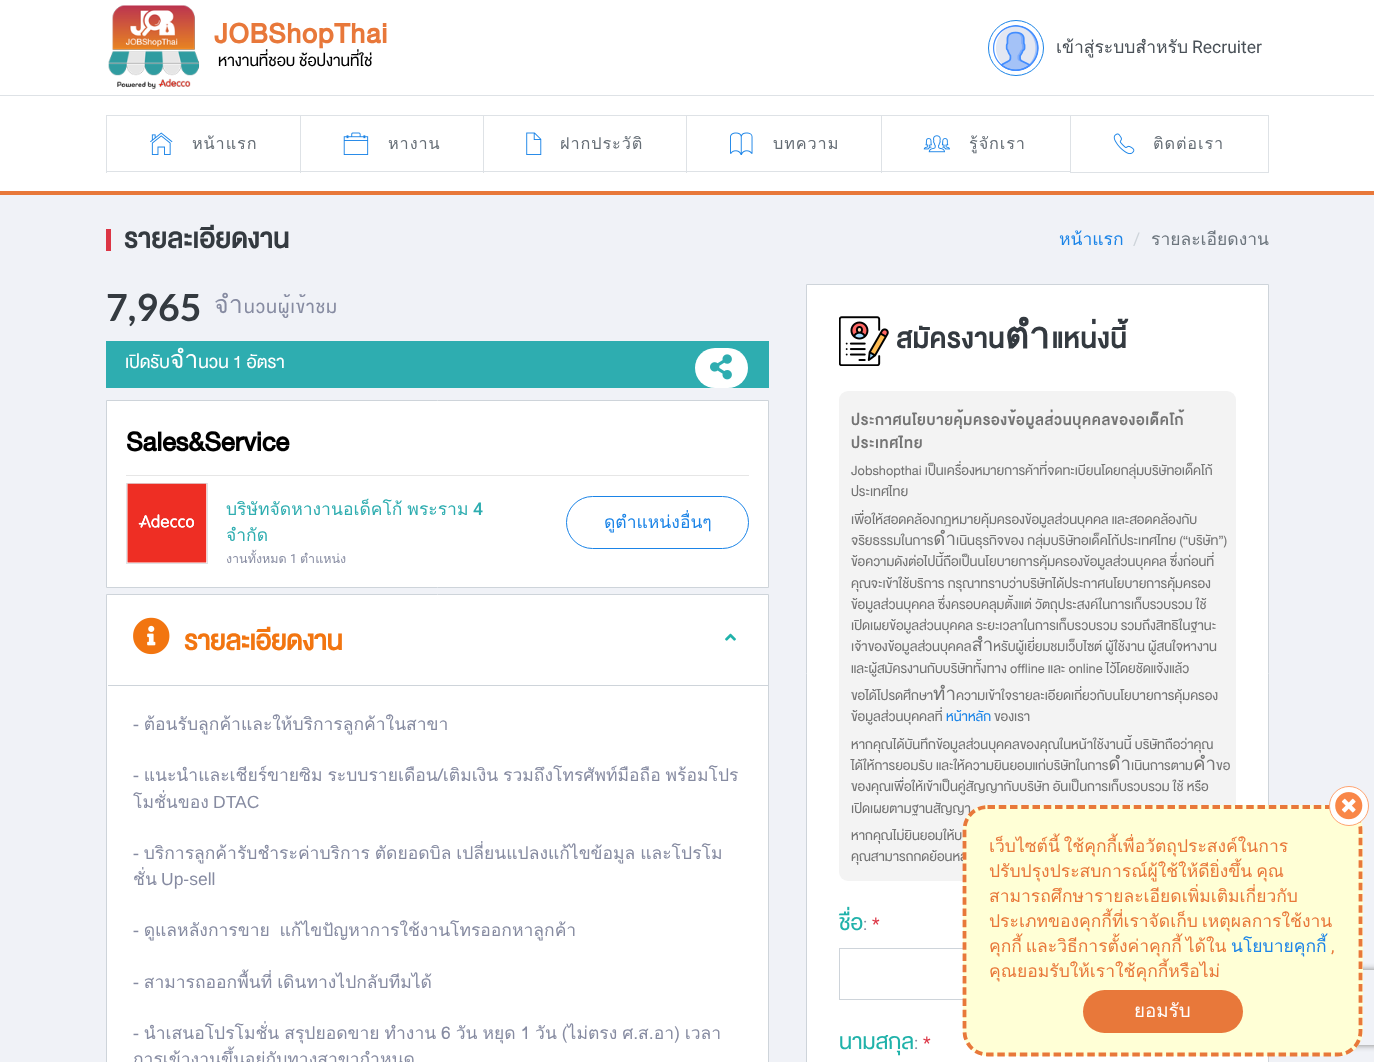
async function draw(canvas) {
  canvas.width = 1374;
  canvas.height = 1062;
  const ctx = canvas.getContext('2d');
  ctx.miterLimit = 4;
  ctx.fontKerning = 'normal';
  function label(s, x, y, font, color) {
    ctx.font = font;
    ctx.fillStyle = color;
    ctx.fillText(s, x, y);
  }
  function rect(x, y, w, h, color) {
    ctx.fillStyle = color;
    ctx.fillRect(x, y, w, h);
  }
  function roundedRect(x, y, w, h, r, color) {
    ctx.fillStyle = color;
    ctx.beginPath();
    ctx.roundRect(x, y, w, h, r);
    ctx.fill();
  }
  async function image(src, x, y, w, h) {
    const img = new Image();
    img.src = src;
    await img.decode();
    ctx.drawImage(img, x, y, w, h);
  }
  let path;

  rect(0, 0, 1374, 1062, '#f0f2f7');
  rect(0, 0, 1374, 95, '#fff');
  rect(0, 95, 1374, 1, '#dee2e6');
  await image('assets/img1.png', 108, 5, 92, 84);
  ctx.letterSpacing = '0.9px';
  label('JOBShopThai', 214, 43, 'bold 38.75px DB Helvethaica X', '#e8783a');
  ctx.letterSpacing = '0px';
  label('หางานที่ชอบ ช้อปงานที่ใช่', 218, 66, '22.5px DB Helvethaica X', '#000');
  ctx.beginPath();
  ctx.arc(1016, 48, 27.5, 0, 2 * Math.PI);
  ctx.strokeStyle = '#1b84e7';
  ctx.stroke();
  await image('assets/img2.png', 993, 25, 46, 46);
  label('เข้าสู่ระบบสำหรับ', 1056, 53, '17.5px Loma', '#495057');
  label('Recruiter', 1192, 53, '17.5px Roboto', '#495057');
  rect(0, 96, 1374, 95, '#fff');
  rect(0, 191, 1374, 4, '#e8783a');
  rect(106, 115, 964, 1, '#dee2e6');
  rect(106, 171, 964, 1, '#dee2e6');
  rect(106, 115, 1, 58, '#dee2e6');
  await image('assets/img3.png', 150, 132, 23, 23);
  ctx.letterSpacing = '0.9px';
  label('หน้าแรก', 192, 149, '16.25px Loma', '#656d75');
  rect(300, 115, 1, 58, '#dee2e6');
  await image('assets/img4.png', 343, 132, 26, 23);
  label('หางาน', 388, 149, '16.25px Loma', '#656d75');
  rect(483, 115, 1, 58, '#dee2e6');
  await image('assets/img5.png', 526, 132, 16, 23);
  label('ฝากประวัติ', 560, 149, '16.25px Loma', '#656d75');
  rect(686, 115, 1, 58, '#dee2e6');
  await image('assets/img6.png', 730, 132, 23, 23);
  label('บทความ', 773, 149, '16.25px Loma', '#656d75');
  rect(881, 115, 1, 58, '#dee2e6');
  await image('assets/img7.png', 923, 135, 27, 18);
  label('รู้จักเรา', 969, 149, '16.25px Loma', '#656d75');
  ctx.strokeStyle = '#dee2e6';
  ctx.strokeRect(1070.5, 115.5, 198, 57);
  await image('assets/img8.png', 1113, 133, 22, 22);
  label('ติดต่อเรา', 1153, 149, '16.25px Loma', '#656d75');
  rect(106, 229, 5, 22, '#dc3545');
  ctx.letterSpacing = '0.6px';
  label('รายละเอียดงาน', 124, 248, 'bold 37.5px DB Helvethaica X', '#343a40');
  ctx.letterSpacing = '0px';
  label('หน้าแรก', 1059, 245, '17.5px Loma', '#1b84e7');
  label('/', 1133, 245, '17.5px Roboto', '#ced4da');
  label('รายละเอียดงาน', 1151, 245, '17.5px Loma', '#6c757d');
  label('7,965', 106, 321, 'bold 37.5px Lato', '#343a40');
  ctx.letterSpacing = '1.25px';
  label('จำนวนผู้เข้าชม', 214, 313, '25px DB Helvethaica X', '#868ba1');
  rect(106, 341, 663, 47, '#2eadb0');
  ctx.letterSpacing = '0px';
  label('เปิดรับจำนวน 1 อัตรา', 125, 368, '25px DB Helvethaica X', '#fff');
  roundedRect(695, 348, 53, 40, 20, '#fff');
  await image('assets/img9.png', 710, 354, 22, 26);
  ctx.beginPath();
  ctx.rect(106.5, 400.5, 662, 187);
  ctx.fill();
  ctx.strokeStyle = '#ced4da';
  ctx.stroke();
  label('Sales&Service', 126, 451, 'bold 37.5px DB Helvethaica X', '#000');
  rect(126, 475, 623, 1, '#e6e6e6');
  ctx.strokeStyle = '#dee2e6';
  ctx.strokeRect(126.5, 483.5, 81, 80);
  await image('assets/img10.png', 127, 483, 80, 80);
  ctx.wordSpacing = '-1px';
  label('บริษัทจัดหางานอเด็คโก้ พระราม', 226, 515, '17.5px Loma', '#2eadb0');
  ctx.wordSpacing = '0px';
  label('4', 473, 515, '500 17.5px Roboto', '#2eadb0');
  label('จำกัด', 226, 541, '17.5px Loma', '#2eadb0');
  label('งานทั้งหมด', 226, 563, '12.5px Loma', '#868ba1');
  label('1', 290, 563, '12.5px Roboto', '#868ba1');
  label('ตำแหน่ง', 300, 563, '12.5px Loma', '#868ba1');
  ctx.beginPath();
  ctx.roundRect(566.5, 496.5, 182, 52, 26);
  ctx.strokeStyle = '#1b84e7';
  ctx.stroke();
  label('ดูตำแหน่งอื่นๆ', 604, 528, '17.5px Loma', '#1b84e7');
  ctx.fillStyle = '#fff';
  ctx.beginPath();
  ctx.rect(106.5, 594.5, 662, 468);
  ctx.fill();
  ctx.strokeStyle = '#ced4da';
  ctx.stroke();
  rect(108, 685, 660, 1, '#ced4da');
  await image('assets/img11.png', 133, 617, 37, 38);
  label('รายละเอียดงาน', 184, 650, 'bold 37.5px DB Helvethaica X', '#f27510');
  await image('assets/img12.png', 725, 633, 11, 8);
  ctx.wordSpacing = '-1px';
  label('- ต้อนรับลูกค้าและให้บริการลูกค้าในสาขา', 133, 730, '17.5px Loma', '#868ba1');
  label('- แนะนำและเชียร์ขายซิม ระบบรายเดือน/เติมเงิน รวมถึงโทรศัพท์มือถือ พร้อมโปร', 133, 781, '17.5px Loma', '#868ba1');
  ctx.wordSpacing = '0px';
  label('โมชั่นของ', 133, 808, '17.5px Loma', '#868ba1');
  label('DTAC', 213, 808, '17.5px Liberation Sans', '#868ba1');
  ctx.wordSpacing = '-1px';
  label('- บริการลูกค้ารับชำระค่าบริการ ตัดยอดบิล เปลี่ยนแปลงแก้ไขข้อมูล และโปรโม', 133, 859, '17.5px Loma', '#868ba1');
  ctx.wordSpacing = '0px';
  label('ชั่น', 133, 885, '17.5px Loma', '#868ba1');
  label('Up-sell', 161, 885, '17.5px Liberation Sans', '#868ba1');
  ctx.wordSpacing = '-1px';
  label('- ดูแลหลังการขาย  แก้ไขปัญหาการใช้งาน', 133, 936, '17.5px Loma', '#868ba1');
  ctx.wordSpacing = '0px';
  label('โทรออกหาลูกค้า', 450, 936, '17.5px Loma', '#868ba1');
  ctx.wordSpacing = '-1px';
  label('- สามารถออกพื้นที่ เดินทางไปกลับทีมได้', 133, 988, '17.5px Loma', '#868ba1');
  label('- นำเสนอโปรโมชั่น สรุปยอดขาย ทำงาน 6 วัน หยุด 1 วัน (ไม่ตรง ศ.ส.อา) เวลา', 133, 1039, '17.5px Loma', '#868ba1');
  ctx.wordSpacing = '0px';
  label('การเข้างานขึ้นอยู่กับทางสาขากำหนด', 133, 1065, '17.5px Loma', '#868ba1');
  ctx.fillStyle = '#fff';
  ctx.beginPath();
  ctx.rect(806.5, 284.5, 462, 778);
  ctx.fill();
  ctx.stroke();
  await image('assets/img13.png', 839, 316, 50, 50);
  ctx.letterSpacing = '1.25px';
  label('สมัครงานตำแหน่งนี้', 896, 348, 'bold 37.5px DB Helvethaica X', '#343a40');
  roundedRect(839, 391, 397, 490, 9, '#f3f3f3');
  label('ประกาศนโยบายคุ้มครองข้อมูลส่วนบุคคลของอเด็คโก้', 851, 425, 'bold 20px DB Helvethaica X', '#747474');
  label('ประเทศไทย', 851, 448, 'bold 20px DB Helvethaica X', '#747474');
  ctx.letterSpacing = '0px';
  label('Jobshopthai เป็นเครื่องหมายการค้าที่จดทะเบียนโดยกลุ่มบริษัทอเด็คโก้', 851, 475, '18.75px DB Helvethaica X', '#747474');
  label('ประเทศไทย', 851, 496, '18.75px DB Helvethaica X', '#747474');
  label('เพื่อให้สอดคล้องกฎหมายคุ้มครองข้อมูลส่วนบุคคล และสอดคล้องกับ', 851, 524, '18.75px DB Helvethaica X', '#747474');
  label('จริยธรรมในการดำเนินธุรกิจของ กลุ่มบริษัทอเด็คโก้ประเทศไทย (“บริษัท”)', 851, 545, '18.75px DB Helvethaica X', '#747474');
  label('ข้อความดังต่อไปนี้ถือเป็นนโยบายการคุ้มครองข้อมูลส่วนบุคคล ซึ่งก่อนที่', 851, 566, '18.75px DB Helvethaica X', '#747474');
  label('คุณจะเข้าใช้บริการ กรุณาทราบว่าบริษัทได้ประกาศนโยบายการคุ้มครอง', 851, 588, '18.75px DB Helvethaica X', '#747474');
  label('ข้อมูลส่วนบุคคล ซึ่งครอบคลุมตั้งแต่ วัตถุประสงค์ในการเก็บรวบรวม ใช้', 851, 609, '18.75px DB Helvethaica X', '#747474');
  label('เปิดเผยข้อมูลส่วนบุคคล ระยะเวลาในการเก็บรวบรวม รวมถึงสิทธิในฐานะ', 851, 630, '18.75px DB Helvethaica X', '#747474');
  label('เจ้าของข้อมูลส่วนบุคคลสำหรับผู้เยี่ยมชมเว็บไซต์ ผู้ใช้งาน ผู้สนใจหางาน', 851, 651, '18.75px DB Helvethaica X', '#747474');
  label('และผู้สมัครงานกับบริษัททั้งทาง offline และ online ไว้โดยชัดแจ้งแล้ว', 851, 673, '18.75px DB Helvethaica X', '#747474');
  label('ขอได้โปรดศึกษาทำความเข้าใจรายละเอียดเกี่ยวกับนโยบายการคุ้มครอง', 851, 700, '18.75px DB Helvethaica X', '#747474');
  label('ข้อมูลส่วนบุคคลที่', 851, 721, '18.75px DB Helvethaica X', '#747474');
  label('หน้าหลัก', 946, 721, '18.75px DB Helvethaica X', '#1b84e7');
  label('ของเรา', 994, 721, '18.75px DB Helvethaica X', '#747474');
  label('หากคุณได้บันทึกข้อมูลส่วนบุคคลของคุณในหน้าใช้งานนี้ บริษัทถือว่าคุณ', 851, 749, '18.75px DB Helvethaica X', '#747474');
  label('ได้ให้การยอมรับ และให้ความยินยอมแก่บริษัทในการดำเนินการตามคำขอ', 851, 770, '18.75px DB Helvethaica X', '#747474');
  label('ของคุณเพื่อให้เข้าเป็นคู่สัญญากับบริษัท อันเป็นการเก็บรวบรวม ใช้ หรือ', 851, 791, '18.75px DB Helvethaica X', '#747474');
  label('เปิดเผยตามฐานสัญญา', 851, 813, '18.75px DB Helvethaica X', '#747474');
  label('หากคุณไม่ยินยอมให้บ', 851, 840, '18.75px DB Helvethaica X', '#747474');
  label('คุณสามารถกดย้อนหล', 851, 861, '18.75px DB Helvethaica X', '#747474');
  label('ชื่อ', 839, 930, '31px DB Helvethaica X', '#20b2aa');
  label(':', 863, 930, '17.5px Roboto', '#868ba1');
  label('*', 872, 930, '17.5px Roboto', '#dc3545');
  ctx.strokeRect(839.5, 948.5, 396, 51);
  label('นามสกุล', 839, 1049, '31px DB Helvethaica X', '#20b2aa');
  label(':', 914, 1049, '17.5px Roboto', '#868ba1');
  label('*', 923, 1049, '17.5px Roboto', '#dc3545');
  ctx.save();
  path = new Path2D('M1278 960H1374V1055H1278ZM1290.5 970H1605.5C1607 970 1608 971 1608 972.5V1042.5C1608 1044 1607 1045 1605.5 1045H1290.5C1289 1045 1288 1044 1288 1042.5V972.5C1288 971 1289 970 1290.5 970Z');
  ctx.clip(path, 'evenodd');
  ctx.fillStyle = '#808080';
  ctx.filter = 'blur(3px)';
  ctx.beginPath();
  ctx.roundRect(1288, 970, 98, 75, 2.5);
  ctx.fill();
  ctx.filter = 'none';
  ctx.restore();
  roundedRect(963, 805, 400, 251, 25, '#ffffd6');
  path = new Path2D('M987.5 807H1337.5C1350.5 807 1360.5 817 1360.5 830V1031C1360.5 1044 1350.5 1054.5 1337.5 1054.5H987.5C974.5 1054.5 964.5 1044 964.5 1031V830C964.5 817 974.5 807 987.5 807Z');
  ctx.strokeStyle = '#e8783a';
  ctx.lineWidth = 3.8;
  ctx.setLineDash([7.5, 3.75]);
  ctx.stroke(path);
  ctx.fillStyle = '#fff';
  ctx.beginPath();
  ctx.arc(1349, 806, 19.5, 0, 2 * Math.PI);
  ctx.fill();
  ctx.strokeStyle = '#ffa471';
  ctx.lineWidth = 1;
  ctx.setLineDash([]);
  ctx.stroke();
  await image('assets/img14.png', 1335, 792, 28, 28);
  ctx.wordSpacing = '-2px';
  label('เว็บไซต์นี้ ใช้คุกกี้เพื่อวัตถุประสงค์ในการ', 989, 852, '17.5px Loma', '#e8783a');
  label('ปรับปรุงประสบการณ์ผู้ใช้ให้ดียิ่งขึ้น คุณ', 989, 877, '17.5px Loma', '#e8783a');
  ctx.wordSpacing = '0px';
  label('สามารถศึกษารายละเอียดเพิ่มเติมเกี่ยวกับ', 989, 902, '17.5px Loma', '#e8783a');
  ctx.wordSpacing = '-2px';
  label('ประเภทของคุกกี้ที่เราจัดเก็บ เหตุผลการใช้งาน', 989, 927, '17.5px Loma', '#e8783a');
  label('คุกกี้ และวิธีการตั้งค่าคุกกี้ ได้ใน', 989, 952, '17.5px Loma', '#e8783a');
  ctx.wordSpacing = '0px';
  label('นโยบายคุกกี้', 1231, 952, '17.5px Loma', '#1b84e7');
  label(',', 1331, 952, '17.5px Roboto', '#e8783a');
  label('คุณยอมรับให้เราใช้คุกกี้หรือไม่', 989, 977, '17.5px Loma', '#e8783a');
  roundedRect(1083, 990, 160, 43, 21.5, '#e8783a');
  label('ยอมรับ', 1134, 1017, '18.75px Loma', '#fff');
}

draw(document.querySelector('canvas'));
